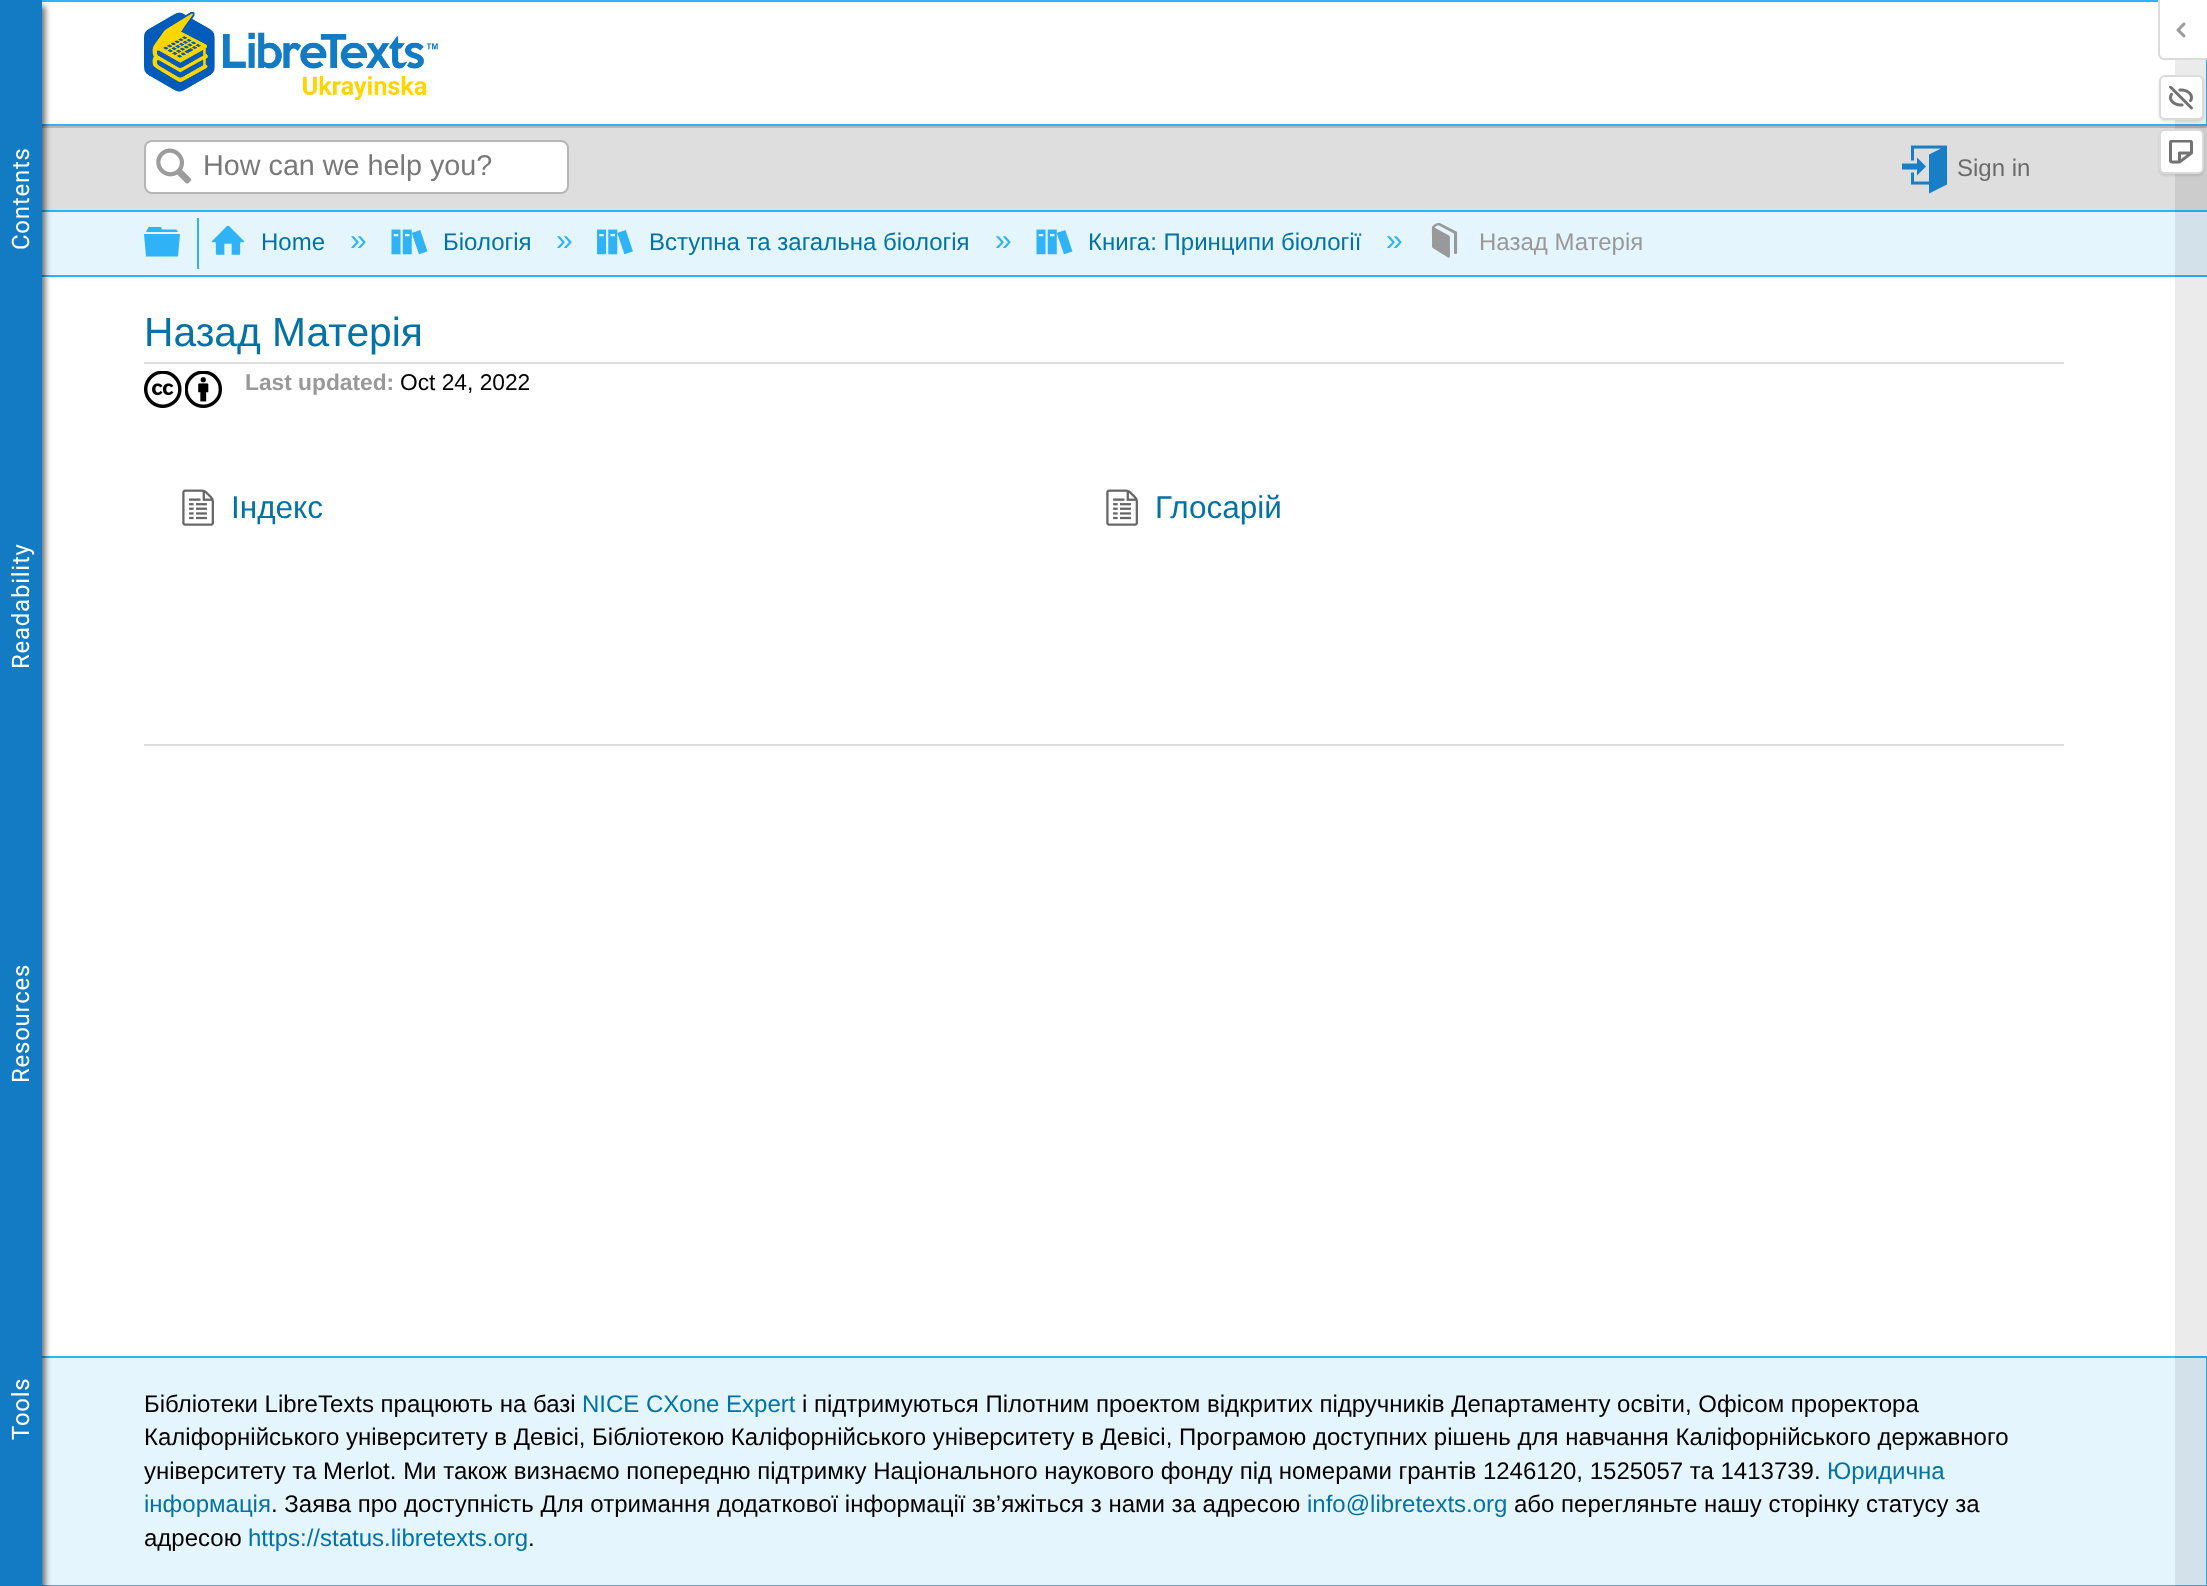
async function draw(canvas) {
  canvas.width = 2207;
  canvas.height = 1586;
  const ctx = canvas.getContext('2d');
  ctx.miterLimit = 4;
  ctx.fontKerning = 'normal';
  function label(s, x, y, font, color) {
    ctx.font = font;
    ctx.fillStyle = color;
    ctx.fillText(s, x, y);
  }
  function rect(x, y, w, h, color) {
    ctx.fillStyle = color;
    ctx.fillRect(x, y, w, h);
  }
  async function image(src, x, y, w, h) {
    const img = new Image();
    img.src = src;
    await img.decode();
    ctx.drawImage(img, x, y, w, h);
  }
  let path;

  rect(0, 0, 2207, 1586, '#fff');
  ctx.strokeStyle = '#30b3f6';
  ctx.lineWidth = 2;
  ctx.strokeRect(1, 1, 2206, 124);
  rect(42, 128, 2165, 82, '#dedede');
  rect(42, 126, 2165, 2, '#b6b6b6');
  rect(42, 212, 2165, 63, '#e5f5fe');
  rect(42, 210, 2165, 2, '#30b3f6');
  rect(42, 275, 2165, 2, '#30b3f6');
  rect(42, 1358, 2164, 227, '#e5f5fe');
  ctx.strokeRect(1, 1357, 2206, 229);
  ctx.fillStyle = '#00000099';
  ctx.filter = 'blur(3px)';
  ctx.beginPath();
  ctx.rect(3, 6, 42, 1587);
  ctx.fill();
  ctx.filter = 'none';
  rect(0, 0, 42, 1586, '#127bc4');
  ctx.letterSpacing = '0.75px';
  ctx.font = '24px Roboto';
  ctx.fillStyle = '#fff';
  ctx.save();
  ctx.translate(29, 250);
  ctx.rotate(-90 * Math.PI / 180);
  ctx.fillText('Contents', 0, 0);
  ctx.restore();
  ctx.save();
  ctx.translate(29, 669);
  ctx.rotate(-90 * Math.PI / 180);
  ctx.fillText('Readability', 0, 0);
  ctx.restore();
  ctx.save();
  ctx.translate(29, 1083);
  ctx.rotate(-90 * Math.PI / 180);
  ctx.fillText('Resources', 0, 0);
  ctx.restore();
  ctx.save();
  ctx.translate(29, 1440);
  ctx.rotate(-90 * Math.PI / 180);
  ctx.fillText('Tools', 0, 0);
  ctx.restore();
  await image('assets/img1.png', 144, 11, 294, 90);
  ctx.beginPath();
  ctx.roundRect(145, 141, 423, 52, 7);
  ctx.fill();
  ctx.strokeStyle = '#b6b6b6';
  ctx.stroke();
  await image('assets/img2.png', 156, 148, 36, 36);
  ctx.letterSpacing = '0px';
  label('How can we help you?', 203, 175, '28.75px Liberation Sans', '#797979');
  await image('assets/img3.png', 1902, 145, 45, 49);
  label('Sign in', 1957, 176, '24px Liberation Sans', '#6b6b6b');
  ctx.fillStyle = '#30b3f6';
  path = new Path2D('M144 234H180L178 256.5H146ZM176.5 229.5L178 232H146L148.5 227H161L162 229.5Z');
  ctx.fill(path);
  rect(197, 218, 2, 51, '#30b3f6');
  await image('assets/img4.png', 211, 225, 34, 30);
  label('Home', 261, 250, '24px Liberation Sans', '#0372a6');
  label('»', 350, 250, '30px Liberation Sans', '#30b3f6');
  await image('assets/img5.png', 391, 229, 37, 26);
  label('Біологія', 443, 250, '24px Liberation Sans', '#0372a6');
  label('»', 556, 250, '30px Liberation Sans', '#30b3f6');
  await image('assets/img6.png', 597, 229, 36, 26);
  label('Вступна та загальна біологія', 649, 250, '24px Liberation Sans', '#0372a6');
  label('»', 995, 250, '30px Liberation Sans', '#30b3f6');
  await image('assets/img5.png', 1036, 229, 37, 26);
  label('Книга: Принципи біології', 1088, 250, '24px Liberation Sans', '#0372a6');
  label('»', 1386, 250, '30px Liberation Sans', '#30b3f6');
  await image('assets/img7.png', 1431, 222, 27, 36);
  label('Назад Матерія', 1479, 250, '24px Liberation Sans', '#999');
  rect(144, 362, 1920, 2, '#ddd');
  label('Назад Матерія', 144, 346, '40.75px Liberation Sans', '#0372a6');
  await image('assets/img8.png', 144, 371, 38, 37);
  await image('assets/img9.png', 185, 371, 37, 37);
  label('Last updated:', 245, 390, 'bold 22.75px Liberation Sans', '#999');
  label('Oct 24, 2022', 400, 390, '22.75px Liberation Sans', '#000');
  await image('assets/img10.png', 182, 489, 32, 37);
  label('Індекс', 231, 518, '31.5px Liberation Sans', '#0372a6');
  await image('assets/img10.png', 1106, 489, 32, 37);
  label('Глосарій', 1155, 518, '31.5px Liberation Sans', '#0372a6');
  rect(144, 744, 1920, 2, '#ddd');
  label('Бібліотеки LibreTexts працюють на базі', 144, 1412, '24px Liberation Sans', '#000');
  label('NICE CXone Expert', 582, 1412, '24px Liberation Sans', '#0372a6');
  label('і підтримуються Пілотним проектом відкритих підручників Департаменту освіти, Офісом проректора', 802, 1412, '24px Liberation Sans', '#000');
  label('Каліфорнійського університету в Девісі, Бібліотекою Каліфорнійського університету в Девісі, Програмою доступних рішень для навчання Каліфорнійського державного', 144, 1445, '24px Liberation Sans', '#000');
  label('університету та Merlot. Ми також визнаємо попередню підтримку Національного наукового фонду під номерами грантів 1246120, 1525057 та 1413739.', 144, 1479, '24px Liberation Sans', '#000');
  label('Юридична', 1827, 1479, '24px Liberation Sans', '#0372a6');
  label('інформація', 144, 1512, '24px Liberation Sans', '#0372a6');
  label('. Заява про доступність Для отримання додаткової інформації зв’яжіться з нами за адресою', 271, 1512, '24px Liberation Sans', '#000');
  label('info@libretexts.org', 1307, 1512, '24px Liberation Sans', '#0372a6');
  label('або перегляньте нашу сторінку статусу за', 1514, 1512, '24px Liberation Sans', '#000');
  label('адресою', 144, 1546, '24px Liberation Sans', '#000');
  label('https://status.libretexts.org', 248, 1546, '24px Liberation Sans', '#0372a6');
  label('.', 528, 1546, '24px Liberation Sans', '#000');
  rect(2175, 60, 32, 1526, '#00000014');
  ctx.fillStyle = '#fff';
  path = new Path2D('M2160 0H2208V59H2165C2162 59 2160 57 2160 54Z');
  ctx.fill(path);
  ctx.fillStyle = '#dbdbdb';
  path = new Path2D('M2158 0H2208V60H2164C2161 60 2158 57 2158 54ZM2160 0H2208V58H2164C2162 58 2160 56 2160 54Z');
  ctx.fill(path, 'evenodd');
  await image('assets/img11.png', 2176, 22, 10, 16);
  ctx.fillStyle = '#0000001a';
  ctx.filter = 'blur(1px)';
  ctx.beginPath();
  ctx.roundRect(2159, 77, 45, 45, 6);
  ctx.fill();
  ctx.filter = 'none';
  ctx.fillStyle = '#fff';
  ctx.beginPath();
  ctx.roundRect(2160, 76, 43, 43, 5);
  ctx.fill();
  ctx.strokeStyle = '#dbdbdb';
  ctx.stroke();
  await image('assets/img12.png', 2169, 86, 24, 24);
  ctx.fillStyle = '#0000001a';
  ctx.filter = 'blur(1px)';
  ctx.beginPath();
  ctx.roundRect(2159, 131, 45, 45, 6);
  ctx.fill();
  ctx.filter = 'none';
  ctx.fillStyle = '#fff';
  ctx.beginPath();
  ctx.roundRect(2160, 130, 43, 43, 5);
  ctx.fill();
  ctx.stroke();
  await image('assets/img13.png', 2169, 140, 24, 24);
}

draw(document.querySelector('canvas'));
